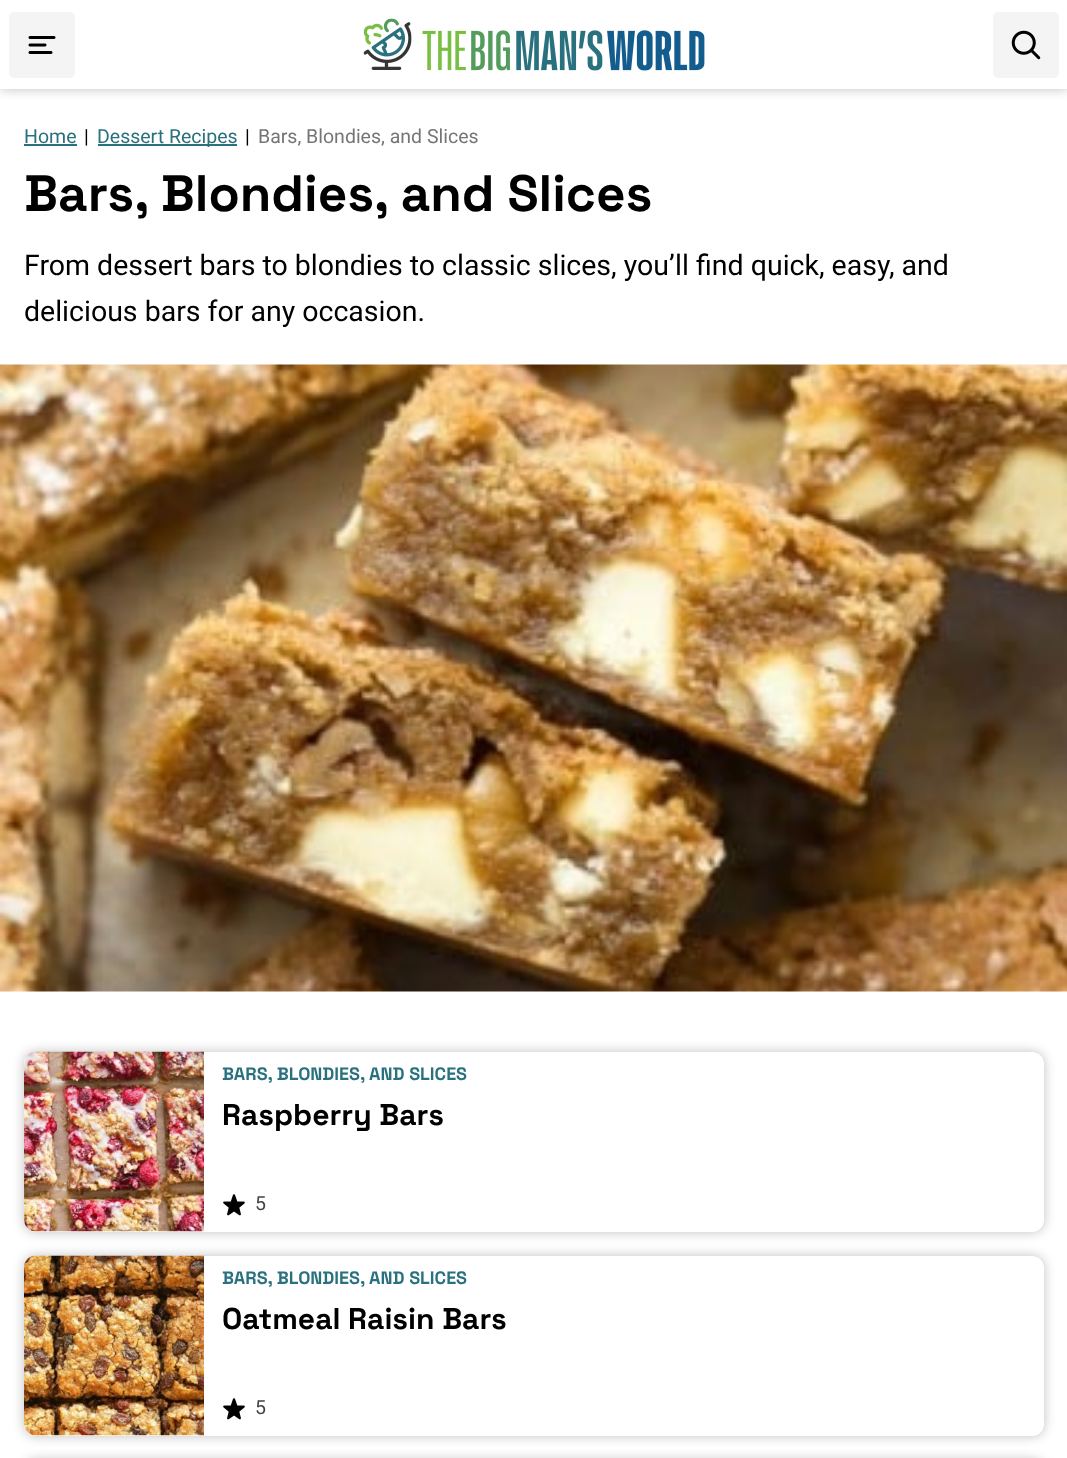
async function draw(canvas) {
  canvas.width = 1067;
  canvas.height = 1458;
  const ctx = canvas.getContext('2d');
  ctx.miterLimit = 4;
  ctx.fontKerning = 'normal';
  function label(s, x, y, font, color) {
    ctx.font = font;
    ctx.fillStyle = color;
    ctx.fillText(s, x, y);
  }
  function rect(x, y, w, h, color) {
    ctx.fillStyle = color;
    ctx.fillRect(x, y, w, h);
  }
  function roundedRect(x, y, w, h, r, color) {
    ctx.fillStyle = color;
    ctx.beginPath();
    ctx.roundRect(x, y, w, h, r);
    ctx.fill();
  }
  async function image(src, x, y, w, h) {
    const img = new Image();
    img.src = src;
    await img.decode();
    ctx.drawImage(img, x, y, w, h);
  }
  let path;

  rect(0, 0, 1067, 1458, '#fff');
  ctx.save();
  path = new Path2D('M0 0H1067V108H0ZM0 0H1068V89H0Z');
  ctx.clip(path, 'evenodd');
  ctx.fillStyle = '#00000040';
  ctx.filter = 'blur(6px)';
  ctx.beginPath();
  ctx.rect(0, 0, 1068, 89);
  ctx.fill();
  ctx.filter = 'none';
  ctx.restore();
  roundedRect(9, 12, 66, 66, 5, '#f4f4f4');
  await image('assets/img1.png', 28, 36, 28, 18);
  roundedRect(993, 12, 66, 66, 5, '#f4f4f4');
  await image('assets/img2.png', 1011, 30, 30, 30);
  await image('assets/img3.png', 363, 18, 342, 53);
  label('Home', 24, 143, '19.5px Roboto', '#29717e');
  rect(24, 144, 53, 2, '#29717e');
  label('|', 84, 143, '19.5px Roboto', '#000');
  rect(98, 144, 139, 2, '#29717e');
  label('Dessert Recipes', 97, 143, '19.5px Roboto', '#29717e');
  label('|', 245, 143, '19.5px Roboto', '#000');
  label('Bars, Blondies, and Slices', 258, 143, '19.5px Roboto', '#757575');
  label('Bars, Blondies, and Slices', 24, 211, '300 51.25px Space Grotesk', '#000');
  label('From dessert bars to blondies to classic slices, you’ll find quick, easy, and', 24, 275, '28.5px Roboto', '#000');
  label('delicious bars for any occasion.', 24, 321, '28.5px Roboto', '#000');
  await image('assets/img4.png', 0, 364, 1067, 628);
  ctx.fillStyle = '#00000040';
  ctx.filter = 'blur(6px)';
  ctx.beginPath();
  ctx.roundRect(24, 1052, 1020, 180, 12);
  ctx.fill();
  ctx.filter = 'none';
  roundedRect(24, 1052, 1020, 180, 12, '#fff');
  await image('assets/img5.png', 24, 1051, 180, 181);
  label('BARS, BLONDIES, AND SLICES', 222, 1080, '300 18px Space Grotesk', '#29717e');
  label('Raspberry Bars', 222, 1125, '300 30px Space Grotesk', '#000');
  await image('assets/img6.png', 223, 1194, 22, 22);
  label('5', 255, 1210, '19.5px Roboto', '#424242');
  ctx.fillStyle = '#00000040';
  ctx.filter = 'blur(6px)';
  ctx.beginPath();
  ctx.roundRect(24, 1256, 1020, 180, 12);
  ctx.fill();
  ctx.filter = 'none';
  roundedRect(24, 1256, 1020, 180, 12, '#fff');
  await image('assets/img7.png', 24, 1255, 180, 181);
  label('BARS, BLONDIES, AND SLICES', 222, 1284, '300 18px Space Grotesk', '#29717e');
  label('Oatmeal Raisin Bars', 222, 1329, '300 30px Space Grotesk', '#000');
  await image('assets/img6.png', 223, 1398, 22, 22);
  label('5', 255, 1414, '19.5px Roboto', '#424242');
  ctx.fillStyle = '#00000040';
  ctx.filter = 'blur(6px)';
  ctx.beginPath();
  ctx.roundRect(24, 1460, 1020, 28, 12);
  ctx.fill();
  ctx.filter = 'none';
}

draw(document.querySelector('canvas'));
